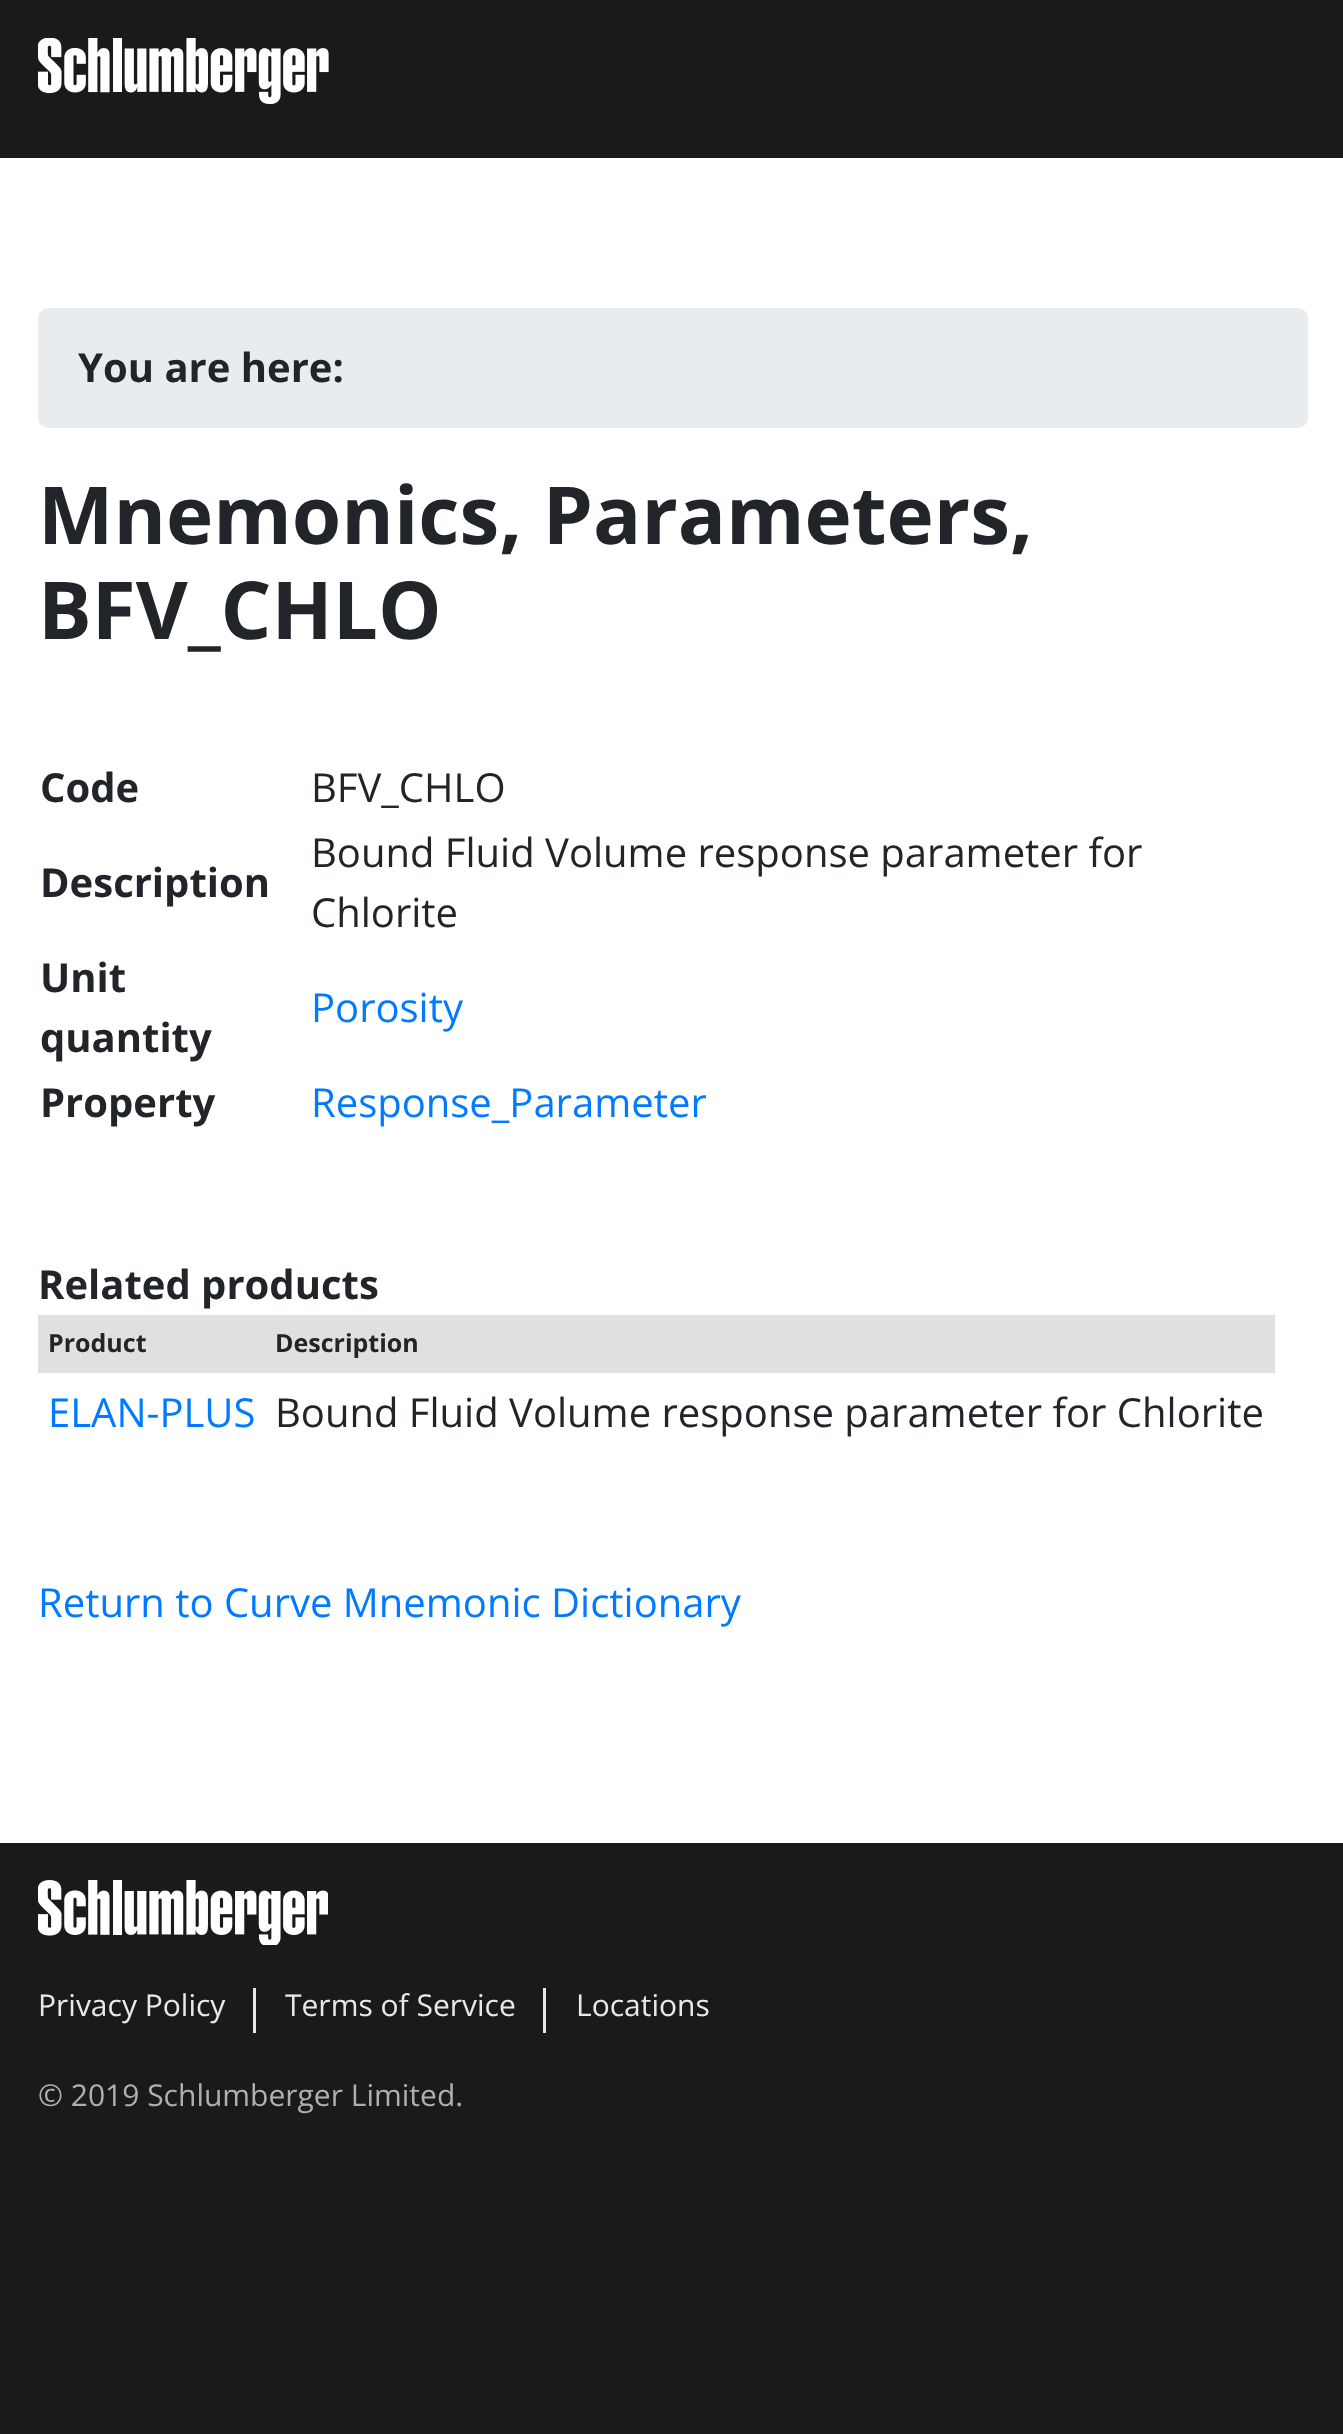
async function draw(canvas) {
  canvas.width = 1343;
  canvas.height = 2434;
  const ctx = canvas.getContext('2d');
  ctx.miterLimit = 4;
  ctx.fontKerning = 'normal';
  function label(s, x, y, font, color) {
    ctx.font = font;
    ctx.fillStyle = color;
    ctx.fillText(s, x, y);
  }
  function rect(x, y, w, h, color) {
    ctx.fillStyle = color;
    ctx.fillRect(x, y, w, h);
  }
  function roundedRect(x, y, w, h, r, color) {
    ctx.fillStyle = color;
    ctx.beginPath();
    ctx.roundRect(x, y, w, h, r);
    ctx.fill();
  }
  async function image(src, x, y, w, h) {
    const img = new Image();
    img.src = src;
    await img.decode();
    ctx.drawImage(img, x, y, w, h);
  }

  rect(0, 0, 1343, 2434, '#1a1a1a');
  await image('assets/img1.png', 38, 38, 291, 67);
  rect(0, 158, 1343, 1685, '#fff');
  roundedRect(38, 308, 1270, 120, 10, '#e9ecef');
  label('You are here:', 78, 382, 'bold 40px Open Sans', '#212529');
  label('Mnemonics, Parameters,', 38, 544, 'bold 80px Open Sans', '#212529');
  label('BFV_CHLO', 38, 639, 'bold 80px Open Sans', '#212529');
  label('Code', 40, 802, 'bold 40px Open Sans', '#212529');
  label('BFV_CHLO', 311, 802, '40px Open Sans', '#212529');
  label('Description', 40, 897, 'bold 40px Open Sans', '#212529');
  label('Bound Fluid Volume response parameter for', 311, 867, '40px Open Sans', '#212529');
  label('Chlorite', 311, 927, '40px Open Sans', '#212529');
  label('Unit', 40, 992, 'bold 40px Open Sans', '#212529');
  label('quantity', 40, 1052, 'bold 40px Open Sans', '#212529');
  label('Porosity', 311, 1022, '40px Open Sans', '#007bff');
  label('Property', 40, 1117, 'bold 40px Open Sans', '#212529');
  label('Response_Parameter', 311, 1117, '40px Open Sans', '#007bff');
  label('Related products', 38, 1299, 'bold 40px Open Sans', '#212529');
  rect(38, 1315, 1237, 58, '#e0e0e0');
  label('Product', 48, 1352, 'bold 25px Open Sans', '#212529');
  label('Description', 275, 1352, 'bold 25px Open Sans', '#212529');
  label('ELAN-PLUS', 48, 1427, '40px Open Sans', '#007bff');
  label('Bound Fluid Volume response parameter for Chlorite', 275, 1427, '40px Open Sans', '#212529');
  label('Return to Curve Mnemonic Dictionary', 38, 1617, '40px Open Sans', '#007bff');
  await image('assets/img2.png', 38, 1880, 290, 65);
  label('Privacy Policy', 38, 2016, '30px Open Sans', '#e8e8e8');
  rect(253, 1988, 3, 45, '#e8e8e8');
  label('Terms of Service', 285, 2016, '30px Open Sans', '#e8e8e8');
  rect(543, 1988, 3, 45, '#e8e8e8');
  label('Locations', 576, 2016, '30px Open Sans', '#e8e8e8');
  label('© 2019 Schlumberger Limited.', 38, 2106, '30px Open Sans', '#afafaf');
}

draw(document.querySelector('canvas'));
